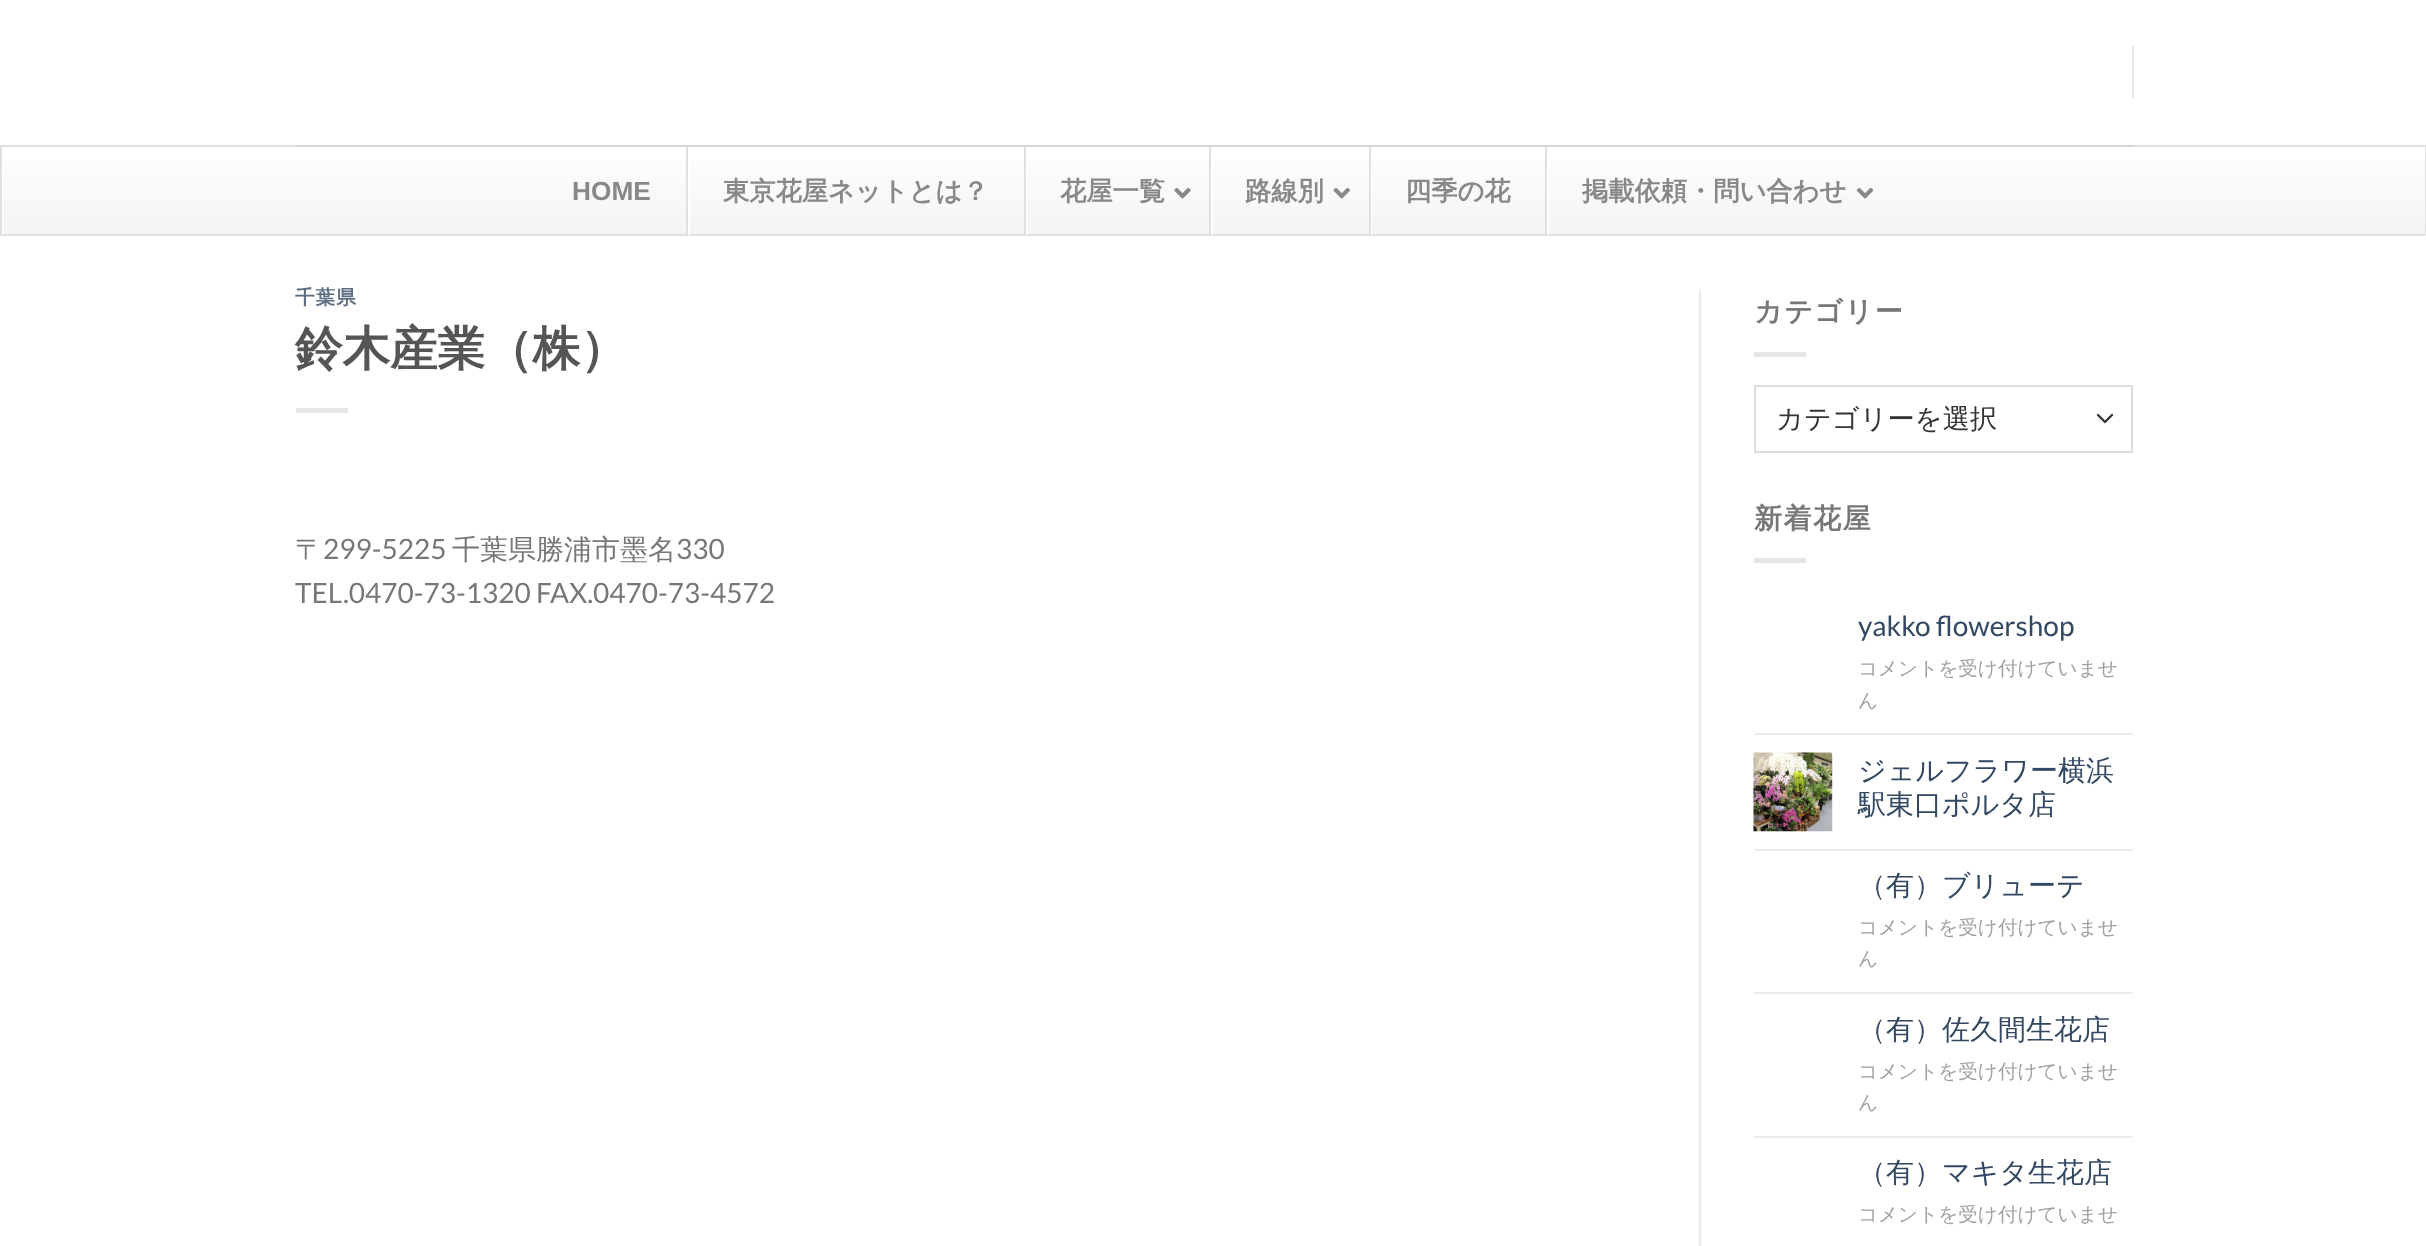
async function draw(canvas) {
  canvas.width = 2426;
  canvas.height = 1246;
  const ctx = canvas.getContext('2d');
  ctx.miterLimit = 4;
  ctx.fontKerning = 'normal';
  function label(s, x, y, font, color) {
    ctx.font = font;
    ctx.fillStyle = color;
    ctx.fillText(s, x, y);
  }
  function rect(x, y, w, h, color) {
    ctx.fillStyle = color;
    ctx.fillRect(x, y, w, h);
  }
  async function image(src, x, y, w, h) {
    const img = new Image();
    img.src = src;
    await img.decode();
    ctx.drawImage(img, x, y, w, h);
  }
  let gradient, path;

  rect(0, 0, 2426, 1246, '#fff');
  rect(2132, 46, 2, 52, '#e6e6e6');
  gradient = ctx.createLinearGradient(1214, 147, 1214, 235);
  gradient.addColorStop(0, '#fefefe');
  gradient.addColorStop(1, '#f4f4f4');
  ctx.fillStyle = gradient;
  ctx.fillRect(2, 160, 2423, 74);
  ctx.save();
  ctx.beginPath();
  ctx.rect(2, 147, 2424, 88);
  ctx.clip();
  ctx.fillStyle = '#ffffffe6';
  path = new Path2D('M-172-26H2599V408H-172ZM4 149H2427V236H4Z');
  ctx.fill(path, 'evenodd');
  ctx.restore();
  ctx.strokeStyle = '#e0e0e0';
  ctx.lineWidth = 2;
  ctx.strokeRect(1, 146, 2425, 89);
  rect(296, 145, 1837, 2, '#d5d5d5');
  label('HOME', 572, 200, 'bold 26.25px Liberation Sans', '#888');
  rect(688, 160, 2, 75, '#ffffffe6');
  rect(686, 147, 2, 88, '#e0e0e0');
  label('東京花屋ネットとは？', 723, 200, 'bold 26.25px WenQuanYi Zen Hei', '#888');
  rect(1026, 160, 2, 75, '#ffffffe6');
  rect(1024, 147, 2, 88, '#e0e0e0');
  label('花屋一覧', 1060, 200, 'bold 26.25px WenQuanYi Zen Hei', '#888');
  await image('assets/img1.png', 1174, 187, 17, 12);
  rect(1211, 160, 2, 75, '#ffffffe6');
  rect(1209, 147, 2, 88, '#e0e0e0');
  label('路線別', 1245, 200, 'bold 26.25px WenQuanYi Zen Hei', '#888');
  await image('assets/img2.png', 1333, 187, 17, 12);
  rect(1371, 160, 1, 75, '#ffffffe6');
  rect(1369, 147, 2, 88, '#e0e0e0');
  label('四季の花', 1405, 200, 'bold 26.25px WenQuanYi Zen Hei', '#888');
  rect(1547, 160, 2, 75, '#ffffffe6');
  rect(1545, 147, 2, 88, '#e0e0e0');
  label('掲載依頼・問い合わせ', 1582, 200, 'bold 26.25px WenQuanYi Zen Hei', '#888');
  await image('assets/img3.png', 1856, 187, 18, 12);
  ctx.letterSpacing = '1px';
  label('千葉県', 295, 304, 'bold 19.6px WenQuanYi Zen Hei', '#5c6d81');
  ctx.letterSpacing = '0px';
  label('鈴木産業（株）', 295, 365, 'bold 47.5px WenQuanYi Zen Hei', '#555');
  rect(296, 408, 52, 5, '#e6e6e6');
  label('〒', 295, 559, '500 28px WenQuanYi Zen Hei', '#777');
  label('299-5225', 323, 559, '28px Lato', '#777');
  label('千葉県勝浦市墨名', 452, 559, '500 28px WenQuanYi Zen Hei', '#777');
  label('330', 676, 559, '28px Lato', '#777');
  label('TEL.0470-73-1320 FAX.0470-73-4572', 295, 603, '28px Lato', '#777');
  rect(1699, 289, 2, 957, '#ececec');
  ctx.letterSpacing = '1.5px';
  label('カテゴリー', 1754, 321, 'bold 28px WenQuanYi Zen Hei', '#777');
  rect(1754, 352, 52, 5, '#e6e6e6');
  path = new Path2D('M2098 415L2105 422L2112 415');
  ctx.strokeStyle = '#333';
  ctx.lineWidth = 2.3;
  ctx.lineCap = 'round';
  ctx.lineJoin = 'round';
  ctx.stroke(path);
  ctx.strokeStyle = '#ddd';
  ctx.lineWidth = 2;
  ctx.lineJoin = 'miter';
  ctx.strokeRect(1755, 386, 377, 66);
  ctx.letterSpacing = '0px';
  label('カテゴリーを選択', 1776, 428, '500 27.25px WenQuanYi Zen Hei', '#333');
  ctx.letterSpacing = '1.5px';
  label('新着花屋', 1754, 528, 'bold 28px WenQuanYi Zen Hei', '#777');
  rect(1754, 558, 52, 5, '#e6e6e6');
  ctx.letterSpacing = '0px';
  label('yakko flowershop', 1858, 636, '28px Lato', '#334862');
  label('コメントを受け付けていませ', 1858, 675, '500 19.6px WenQuanYi Zen Hei', '#a0a0a0');
  label('ん', 1858, 707, '500 19.6px WenQuanYi Zen Hei', '#a0a0a0');
  rect(1754, 733, 379, 2, '#ececec');
  await image('assets/img4.png', 1753, 752, 80, 80);
  label('ジェルフラワー横浜', 1858, 780, '500 28px WenQuanYi Zen Hei', '#334862');
  label('駅東口ポルタ店', 1858, 814, '500 28px WenQuanYi Zen Hei', '#334862');
  rect(1754, 849, 379, 2, '#ececec');
  label('（有）ブリューテ', 1858, 895, '500 28px WenQuanYi Zen Hei', '#334862');
  label('コメントを受け付けていませ', 1858, 934, '500 19.6px WenQuanYi Zen Hei', '#a0a0a0');
  label('ん', 1858, 965, '500 19.6px WenQuanYi Zen Hei', '#a0a0a0');
  rect(1754, 992, 379, 2, '#ececec');
  label('（有）佐久間生花店', 1858, 1039, '500 28px WenQuanYi Zen Hei', '#334862');
  label('コメントを受け付けていませ', 1858, 1078, '500 19.6px WenQuanYi Zen Hei', '#a0a0a0');
  label('ん', 1858, 1109, '500 19.6px WenQuanYi Zen Hei', '#a0a0a0');
  rect(1754, 1136, 379, 2, '#ececec');
  label('（有）マキタ生花店', 1858, 1182, '500 28px WenQuanYi Zen Hei', '#334862');
  label('コメントを受け付けていませ', 1858, 1221, '500 19.6px WenQuanYi Zen Hei', '#a0a0a0');
}

draw(document.querySelector('canvas'));
